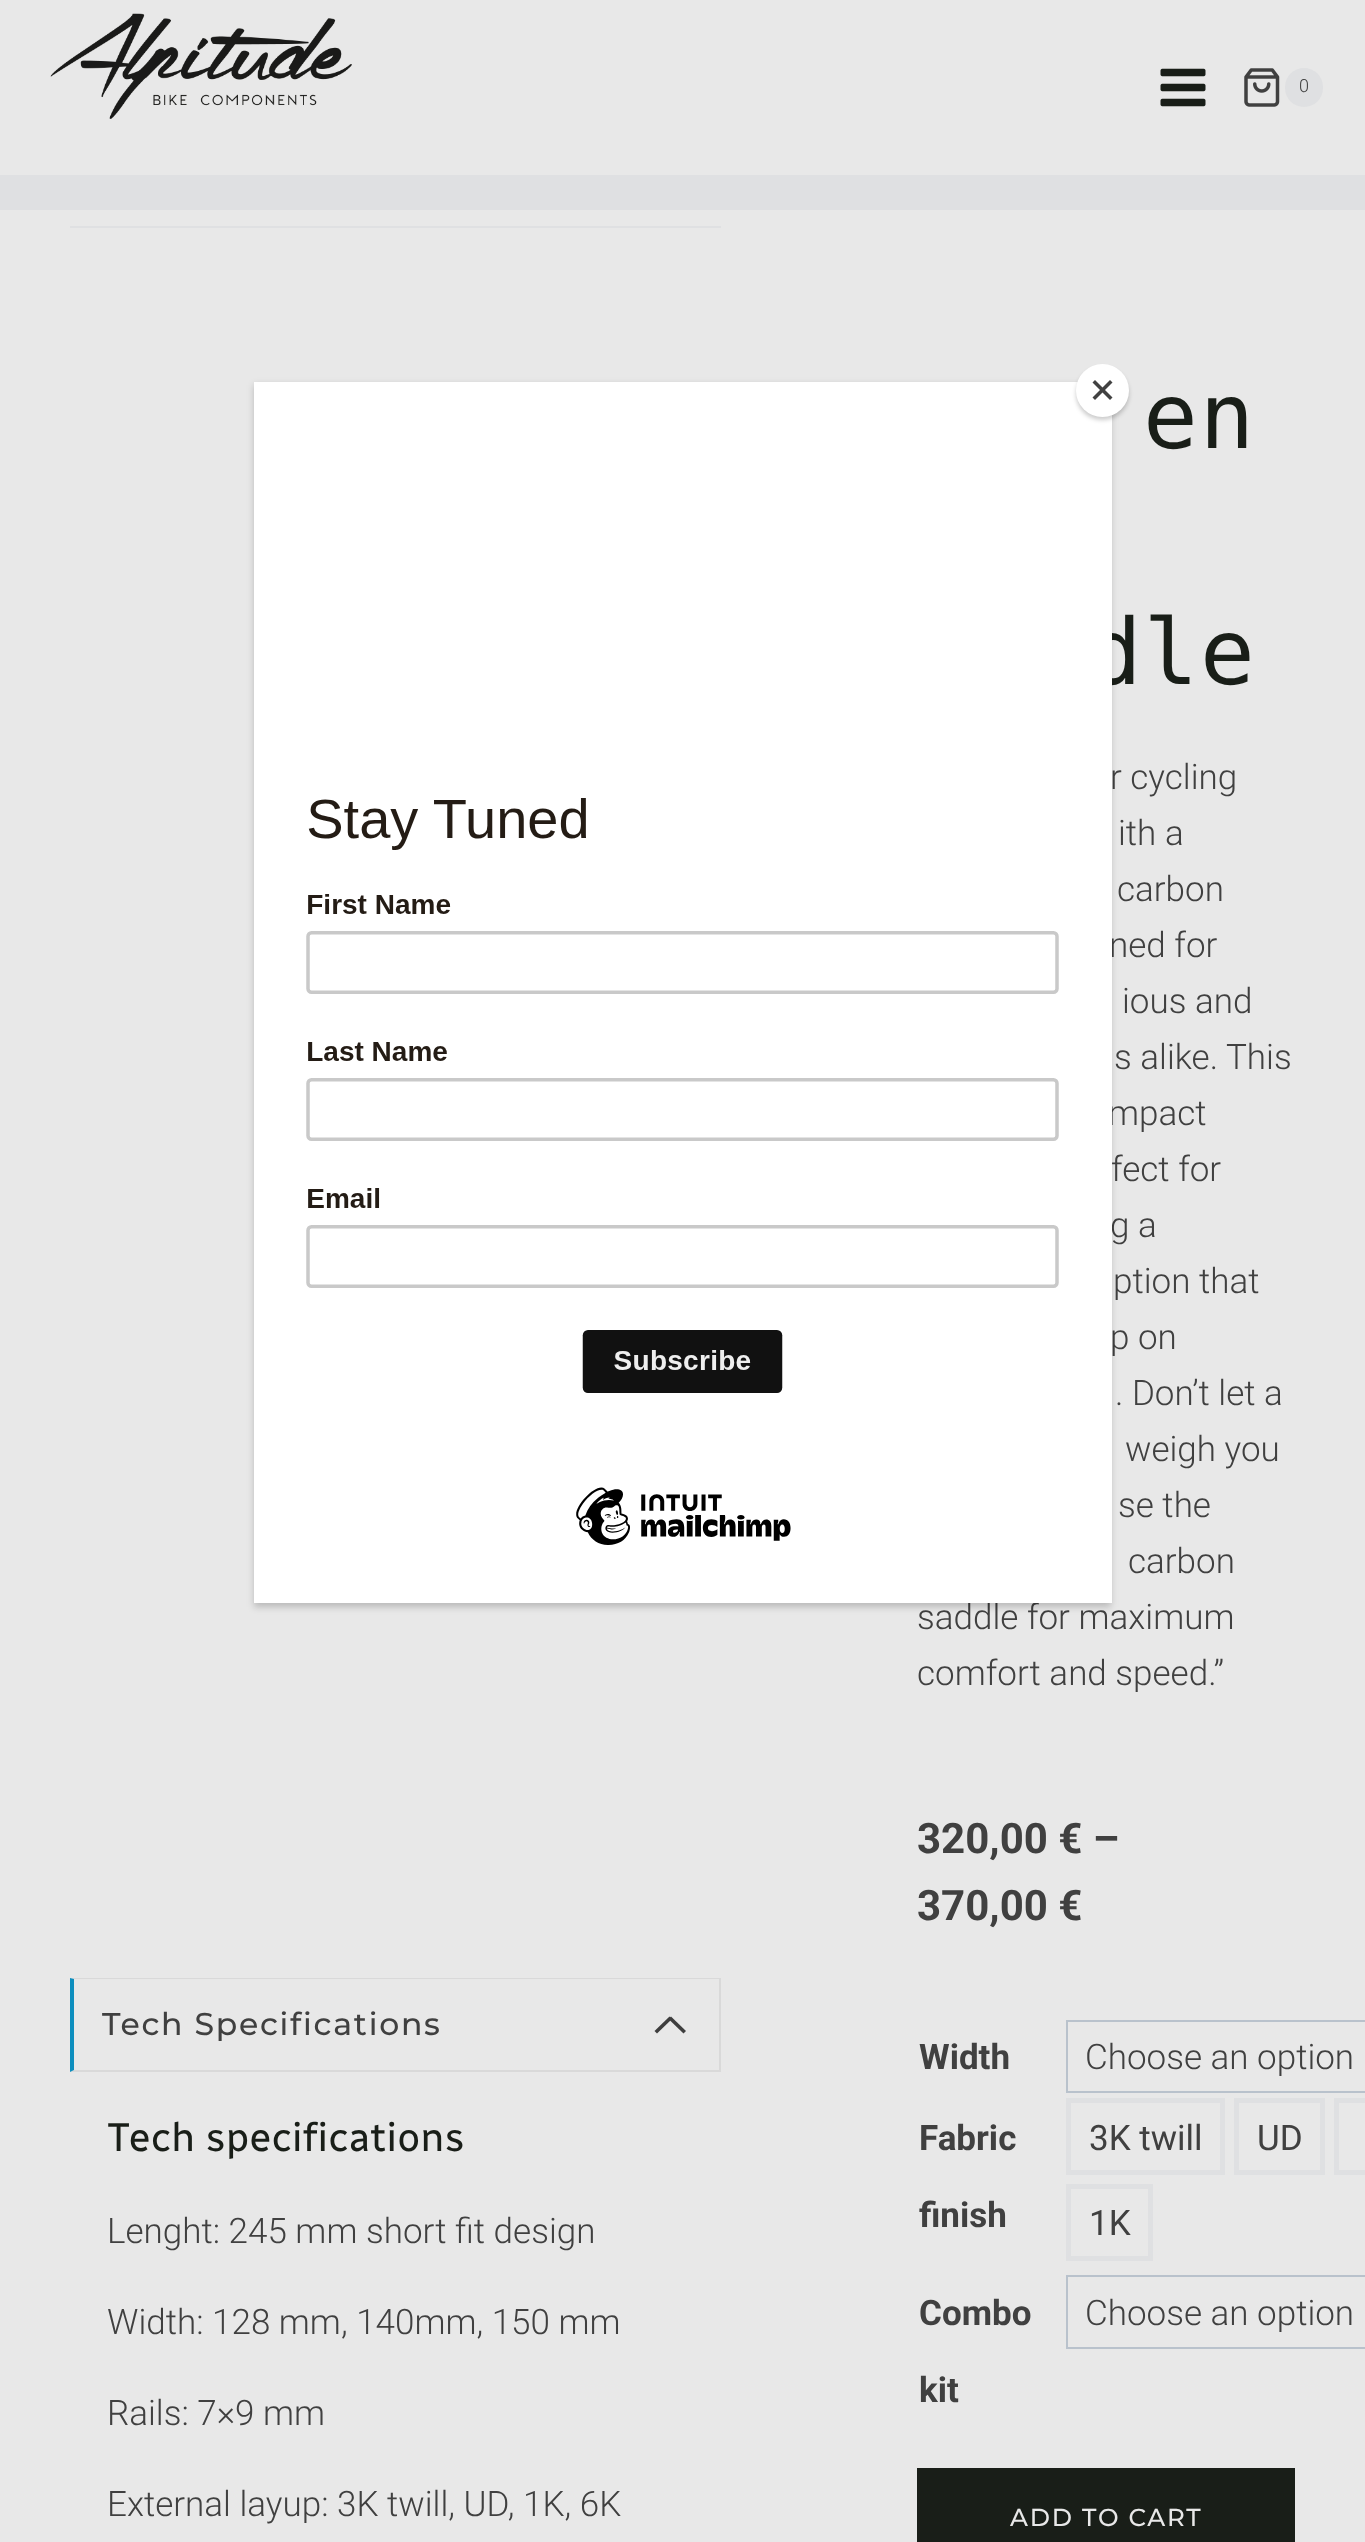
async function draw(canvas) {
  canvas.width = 1365;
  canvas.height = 2542;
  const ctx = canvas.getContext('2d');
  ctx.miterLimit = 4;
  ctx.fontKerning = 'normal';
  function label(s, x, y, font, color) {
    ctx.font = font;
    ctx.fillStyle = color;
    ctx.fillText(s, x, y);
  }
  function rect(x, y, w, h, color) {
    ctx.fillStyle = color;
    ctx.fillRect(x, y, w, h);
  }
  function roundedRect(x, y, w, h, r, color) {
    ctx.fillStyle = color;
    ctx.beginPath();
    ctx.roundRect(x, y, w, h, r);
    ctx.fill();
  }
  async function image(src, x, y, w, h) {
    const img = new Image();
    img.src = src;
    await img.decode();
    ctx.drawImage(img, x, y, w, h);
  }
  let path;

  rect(0, 0, 1365, 2542, '#dfe0e2');
  rect(0, 0, 1365, 175, '#e8e8e8');
  await image('assets/img1.png', 50, 13, 302, 106);
  await image('assets/img2.png', 1160, 68, 46, 39);
  await image('assets/img3.png', 1244, 68, 36, 39);
  roundedRect(1285, 68, 38, 39, 19, '#dfe0e2');
  label('0', 1299, 92, '300 18px Roboto', '#404040');
  rect(0, 210, 1365, 2332, '#e8e8e8');
  rect(70, 226, 651, 2, '#dfe0e2');
  ctx.fillStyle = '#d9d9d9';
  path = new Path2D('M70 1978H721L719 1979H74Z');
  ctx.fill(path);
  rect(719, 1978, 2, 94, '#d9d9d9');
  path = new Path2D('M721 2072H70L74 2070H719Z');
  ctx.fill(path);
  ctx.fillStyle = '#0d8ebe';
  path = new Path2D('M70 2072V1978L74 1979V2070Z');
  ctx.fill(path);
  ctx.letterSpacing = '1.75px';
  label('Tech Specifications', 102, 2035, '500 31.5px Montserrat', '#404040');
  ctx.fillStyle = '#3e3e3e';
  path = new Path2D('M654.5 2031L669.5 2016.5L672 2019L657 2033.5Z');
  ctx.fill(path);
  path = new Path2D('M671 2016.5L686 2031L683.5 2033.5L668.5 2019Z');
  ctx.fill(path);
  ctx.letterSpacing = '0px';
  label('Tech specifications', 107, 2151, '40.25px Radio Canada', '#191e18');
  label('Lenght: 245 mm short fit design', 107, 2243, '300 35px Roboto', '#404040');
  label('Width: 128 mm, 140mm, 150 mm', 107, 2334, '300 35px Roboto', '#404040');
  label('Rails: 7×9 mm', 107, 2425, '300 35px Roboto', '#404040');
  label('External layup: 3K twill, UD, 1K, 6K', 107, 2516, '300 35px Roboto', '#404040');
  ctx.letterSpacing = '1.75px';
  label('en', 1143, 448, '91px DejaVu Sans Mono', '#191e18');
  label('dle', 1087, 684, '91px DejaVu Sans Mono', '#191e18');
  ctx.letterSpacing = '0px';
  label('r cycling', 1110, 789, '300 35px Roboto', '#404040');
  label('ith a', 1118, 845, '300 35px Roboto', '#404040');
  label('carbon', 1117, 901, '300 35px Roboto', '#404040');
  label('ned for', 1109, 957, '300 35px Roboto', '#404040');
  label('ious and', 1122, 1013, '300 35px Roboto', '#404040');
  label('s alike. This', 1114, 1069, '300 35px Roboto', '#404040');
  label('mpact', 1108, 1125, '300 35px Roboto', '#404040');
  label('fect for', 1111, 1181, '300 35px Roboto', '#404040');
  label('g a', 1110, 1237, '300 35px Roboto', '#404040');
  label('ption that', 1113, 1293, '300 35px Roboto', '#404040');
  label('p on', 1110, 1349, '300 35px Roboto', '#404040');
  label('. Don’t let a', 1115, 1405, '300 35px Roboto', '#404040');
  label('weigh you', 1125, 1461, '300 35px Roboto', '#404040');
  label('se the', 1118, 1517, '300 35px Roboto', '#404040');
  label('carbon', 1128, 1573, '300 35px Roboto', '#404040');
  label('saddle for maximum', 917, 1629, '300 35px Roboto', '#404040');
  label('comfort and speed.”', 917, 1685, '300 35px Roboto', '#404040');
  label('320,00 € –', 917, 1853, 'bold 42px Roboto', '#404040');
  label('370,00 €', 917, 1920, 'bold 42px Roboto', '#404040');
  label('Width', 919, 2069, 'bold 35px Roboto', '#404040');
  ctx.strokeStyle = '#b9c2cc';
  ctx.lineWidth = 2;
  ctx.strokeRect(1067, 2021, 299, 71);
  label('Choose an option', 1085, 2069, '300 35px Roboto', '#404040');
  label('Fabric', 919, 2150, 'bold 35px Roboto', '#404040');
  label('finish', 919, 2227, 'bold 35px Roboto', '#404040');
  ctx.strokeStyle = '#dfe0e2';
  ctx.lineWidth = 5;
  ctx.strokeRect(1068.5, 2100.5, 154, 72);
  label('3K twill', 1089, 2150, '35px Roboto', '#404040');
  ctx.strokeRect(1236.5, 2100.5, 86, 72);
  label('UD', 1257, 2150, '35px Roboto', '#404040');
  ctx.strokeRect(1336.5, 2100.5, 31, 72);
  ctx.strokeRect(1068.5, 2186.5, 82, 72);
  label('1K', 1089, 2235, '35px Roboto', '#404040');
  label('Combo', 919, 2325, 'bold 35px Roboto', '#404040');
  label('kit', 919, 2402, 'bold 35px Roboto', '#404040');
  ctx.strokeStyle = '#b9c2cc';
  ctx.lineWidth = 2;
  ctx.strokeRect(1067, 2276, 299, 72);
  label('Choose an option', 1085, 2325, '300 35px Roboto', '#404040');
  rect(917, 2468, 378, 74, '#191e18');
  ctx.letterSpacing = '1.75px';
  label('ADD TO CART', 1010, 2526, '500 24.5px Montserrat', '#e8e8e8');
  ctx.fillStyle = '#00000033';
  ctx.filter = 'blur(3.5px)';
  ctx.beginPath();
  ctx.rect(254, 385, 857, 1222);
  ctx.fill();
  ctx.filter = 'none';
  await image('assets/img4.png', 254, 382, 858, 1221);
  ctx.filter = 'blur(2px)';
  ctx.beginPath();
  ctx.roundRect(1076, 368, 53, 52, 26);
  ctx.fill();
  ctx.filter = 'none';
  ctx.fillStyle = '#fff';
  ctx.beginPath();
  ctx.arc(1102.5, 390.5, 26.5, 0, 2 * Math.PI);
  ctx.fill();
  ctx.fillStyle = '#414141';
  path = new Path2D('M1110 380L1112.5 382.5L1095 400L1092.5 397.5Z');
  ctx.fill(path);
  path = new Path2D('M1092.5 382.5L1095 380L1112.5 397.5L1110 400Z');
  ctx.fill(path);
}

draw(document.querySelector('canvas'));
